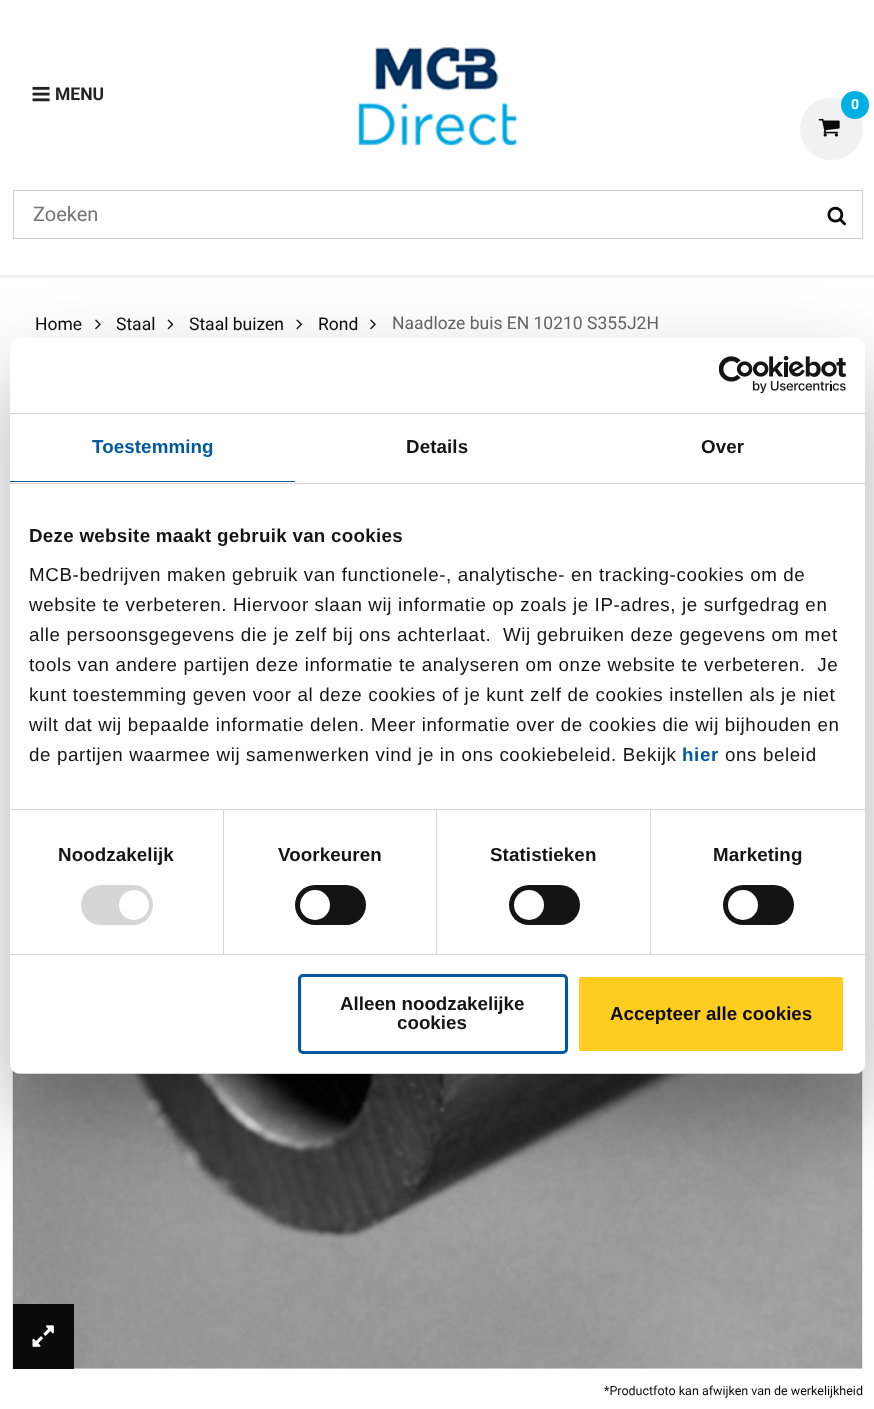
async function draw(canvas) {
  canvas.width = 874;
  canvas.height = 1409;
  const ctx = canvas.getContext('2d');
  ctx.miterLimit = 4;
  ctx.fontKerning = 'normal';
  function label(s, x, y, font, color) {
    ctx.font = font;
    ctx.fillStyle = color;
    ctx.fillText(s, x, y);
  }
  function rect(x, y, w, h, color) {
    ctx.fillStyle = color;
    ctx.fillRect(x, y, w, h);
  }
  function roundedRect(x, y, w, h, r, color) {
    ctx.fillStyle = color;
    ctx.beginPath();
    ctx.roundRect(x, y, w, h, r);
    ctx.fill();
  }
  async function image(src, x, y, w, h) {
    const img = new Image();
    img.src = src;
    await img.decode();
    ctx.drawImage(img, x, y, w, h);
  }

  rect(0, 0, 874, 1409, '#fff');
  await image('assets/img1.png', 32, 86, 18, 16);
  label('MENU', 55, 100, 'bold 17.5px Roboto', '#222');
  await image('assets/img2.png', 358, 47, 159, 99);
  roundedRect(800, 98, 63, 62, 31, '#f1f1f1');
  ctx.fillStyle = '#00afe2';
  ctx.beginPath();
  ctx.arc(855, 105, 14, 0, 2 * Math.PI);
  ctx.fill();
  label('0', 851, 109, 'bold 14px Roboto', '#fff');
  await image('assets/img3.png', 818, 118, 22, 19);
  ctx.strokeStyle = '#ccc';
  ctx.strokeRect(13.5, 190.5, 849, 48);
  label('Zoeken', 33, 221, '20px Roboto', '#757575');
  await image('assets/img4.png', 827, 206, 19, 20);
  rect(0, 275, 874, 3, '#f1f1f1');
  label('Home', 35, 330, '17.5px Roboto', '#0a0a0a');
  await image('assets/img5.png', 95, 319, 6, 11);
  label('Staal', 116, 330, '17.5px Roboto', '#0a0a0a');
  await image('assets/img6.png', 167, 319, 7, 11);
  label('Staal buizen', 189, 330, '17.5px Roboto', '#0a0a0a');
  await image('assets/img7.png', 296, 319, 6, 11);
  label('Rond', 318, 330, '17.5px Roboto', '#0a0a0a');
  await image('assets/img5.png', 370, 319, 6, 11);
  label('Naadloze buis EN 10210 S355J2H', 392, 329, '17.5px Roboto', '#666');
  await image('assets/img8.png', 12, 1070, 851, 299);
  rect(13, 1304, 61, 65, '#0a0a0a');
  await image('assets/img9.png', 32, 1325, 22, 22);
  label('*Productfoto kan afwijken van de werkelijkheid', 604, 1395, '12.5px Roboto', '#0a0a0a');
  ctx.fillStyle = '#0000004d';
  ctx.filter = 'blur(42.5px)';
  ctx.beginPath();
  ctx.roundRect(10, 378, 855, 736, 10);
  ctx.fill();
  ctx.filter = 'none';
  roundedRect(10, 338, 855, 736, 10, '#fff');
  rect(10, 413, 855, 1, '#d6d6d6');
  await image('assets/img10.png', 719, 356, 127, 38);
  rect(10, 483, 855, 1, '#d6d6d6');
  rect(10, 481, 285, 1, '#0058a2');
  ctx.letterSpacing = '0.1px';
  label('Toestemming', 92, 453, 'bold 18.75px Liberation Sans', '#0058a2');
  label('Details', 406, 453, 'bold 18.75px Liberation Sans', '#141414');
  label('Over', 701, 453, 'bold 18.75px Liberation Sans', '#141414');
  rect(10, 809, 855, 1, '#d6d6d6');
  ctx.letterSpacing = '0.3px';
  label('Deze website maakt gebruik van cookies', 29, 542, 'bold 18.75px Liberation Sans', '#141414');
  ctx.letterSpacing = '0.62px';
  label('MCB-bedrijven maken gebruik van functionele-, analytische- en tracking-cookies om de', 29, 581, '18.75px Liberation Sans', '#141414');
  label('website te verbeteren. Hiervoor slaan wij informatie op zoals je IP-adres, je surfgedrag en', 29, 611, '18.75px Liberation Sans', '#141414');
  label('alle persoonsgegevens die je zelf bij ons achterlaat.  Wij gebruiken deze gegevens om met', 29, 641, '18.75px Liberation Sans', '#141414');
  label('tools van andere partijen deze informatie te analyseren om onze website te verbeteren.  Je', 29, 671, '18.75px Liberation Sans', '#141414');
  label('kunt toestemming geven voor al deze cookies of je kunt zelf de cookies instellen als je niet', 29, 701, '18.75px Liberation Sans', '#141414');
  label('wilt dat wij bepaalde informatie delen. Meer informatie over de cookies die wij bijhouden en', 29, 731, '18.75px Liberation Sans', '#141414');
  label('de partijen waarmee wij samenwerken vind je in ons cookiebeleid. Bekijk', 29, 761, '18.75px Liberation Sans', '#141414');
  label('hier', 682, 761, 'bold 18.75px Liberation Sans', '#0058a2');
  label('ons beleid', 725, 761, '18.75px Liberation Sans', '#141414');
  rect(10, 954, 855, 1, '#d6d6d6');
  rect(223, 810, 1, 144, '#d6d6d6');
  ctx.letterSpacing = '0.1px';
  label('Noodzakelijk', 58, 861, 'bold 18.75px Liberation Sans', '#141414');
  roundedRect(81, 885, 72, 40, 20, '#d6d6d6');
  ctx.fillStyle = '#fff';
  ctx.beginPath();
  ctx.arc(134, 905, 15, 0, 2 * Math.PI);
  ctx.fill();
  rect(436, 810, 1, 144, '#d6d6d6');
  label('Voorkeuren', 278, 861, 'bold 18.75px Liberation Sans', '#141414');
  roundedRect(295, 885, 71, 40, 20, '#141414');
  ctx.fillStyle = '#fff';
  ctx.beginPath();
  ctx.arc(315, 905, 15, 0, 2 * Math.PI);
  ctx.fill();
  rect(650, 810, 1, 144, '#d6d6d6');
  label('Statistieken', 490, 861, 'bold 18.75px Liberation Sans', '#141414');
  roundedRect(509, 885, 71, 40, 20, '#141414');
  ctx.fillStyle = '#fff';
  ctx.beginPath();
  ctx.arc(529, 905, 15, 0, 2 * Math.PI);
  ctx.fill();
  label('Marketing', 713, 861, 'bold 18.75px Liberation Sans', '#141414');
  roundedRect(723, 885, 71, 40, 20, '#141414');
  ctx.fillStyle = '#fff';
  ctx.beginPath();
  ctx.arc(743, 905, 15, 0, 2 * Math.PI);
  ctx.fill();
  ctx.save();
  ctx.beginPath();
  ctx.roundRect(10, 338, 855, 736, 10);
  ctx.clip();
  rect(10, 1073, 855, 1, '#d6d6d6');
  ctx.restore();
  ctx.beginPath();
  ctx.roundRect(299.5, 975.5, 267, 77, 3.5);
  ctx.strokeStyle = '#0058a2';
  ctx.lineWidth = 3;
  ctx.stroke();
  ctx.letterSpacing = '0px';
  label('Alleen noodzakelijke', 340, 1010, 'bold 18.75px Liberation Sans', '#141414');
  label('cookies', 397, 1029, 'bold 18.75px Liberation Sans', '#141414');
  ctx.fillStyle = '#ffcc20';
  ctx.beginPath();
  ctx.roundRect(577.5, 975.5, 267, 77, 3.5);
  ctx.fill();
  ctx.strokeStyle = '#fff';
  ctx.stroke();
  label('Accepteer alle cookies', 610, 1020, 'bold 18.75px Liberation Sans', '#0a0a0a');
}

draw(document.querySelector('canvas'));
